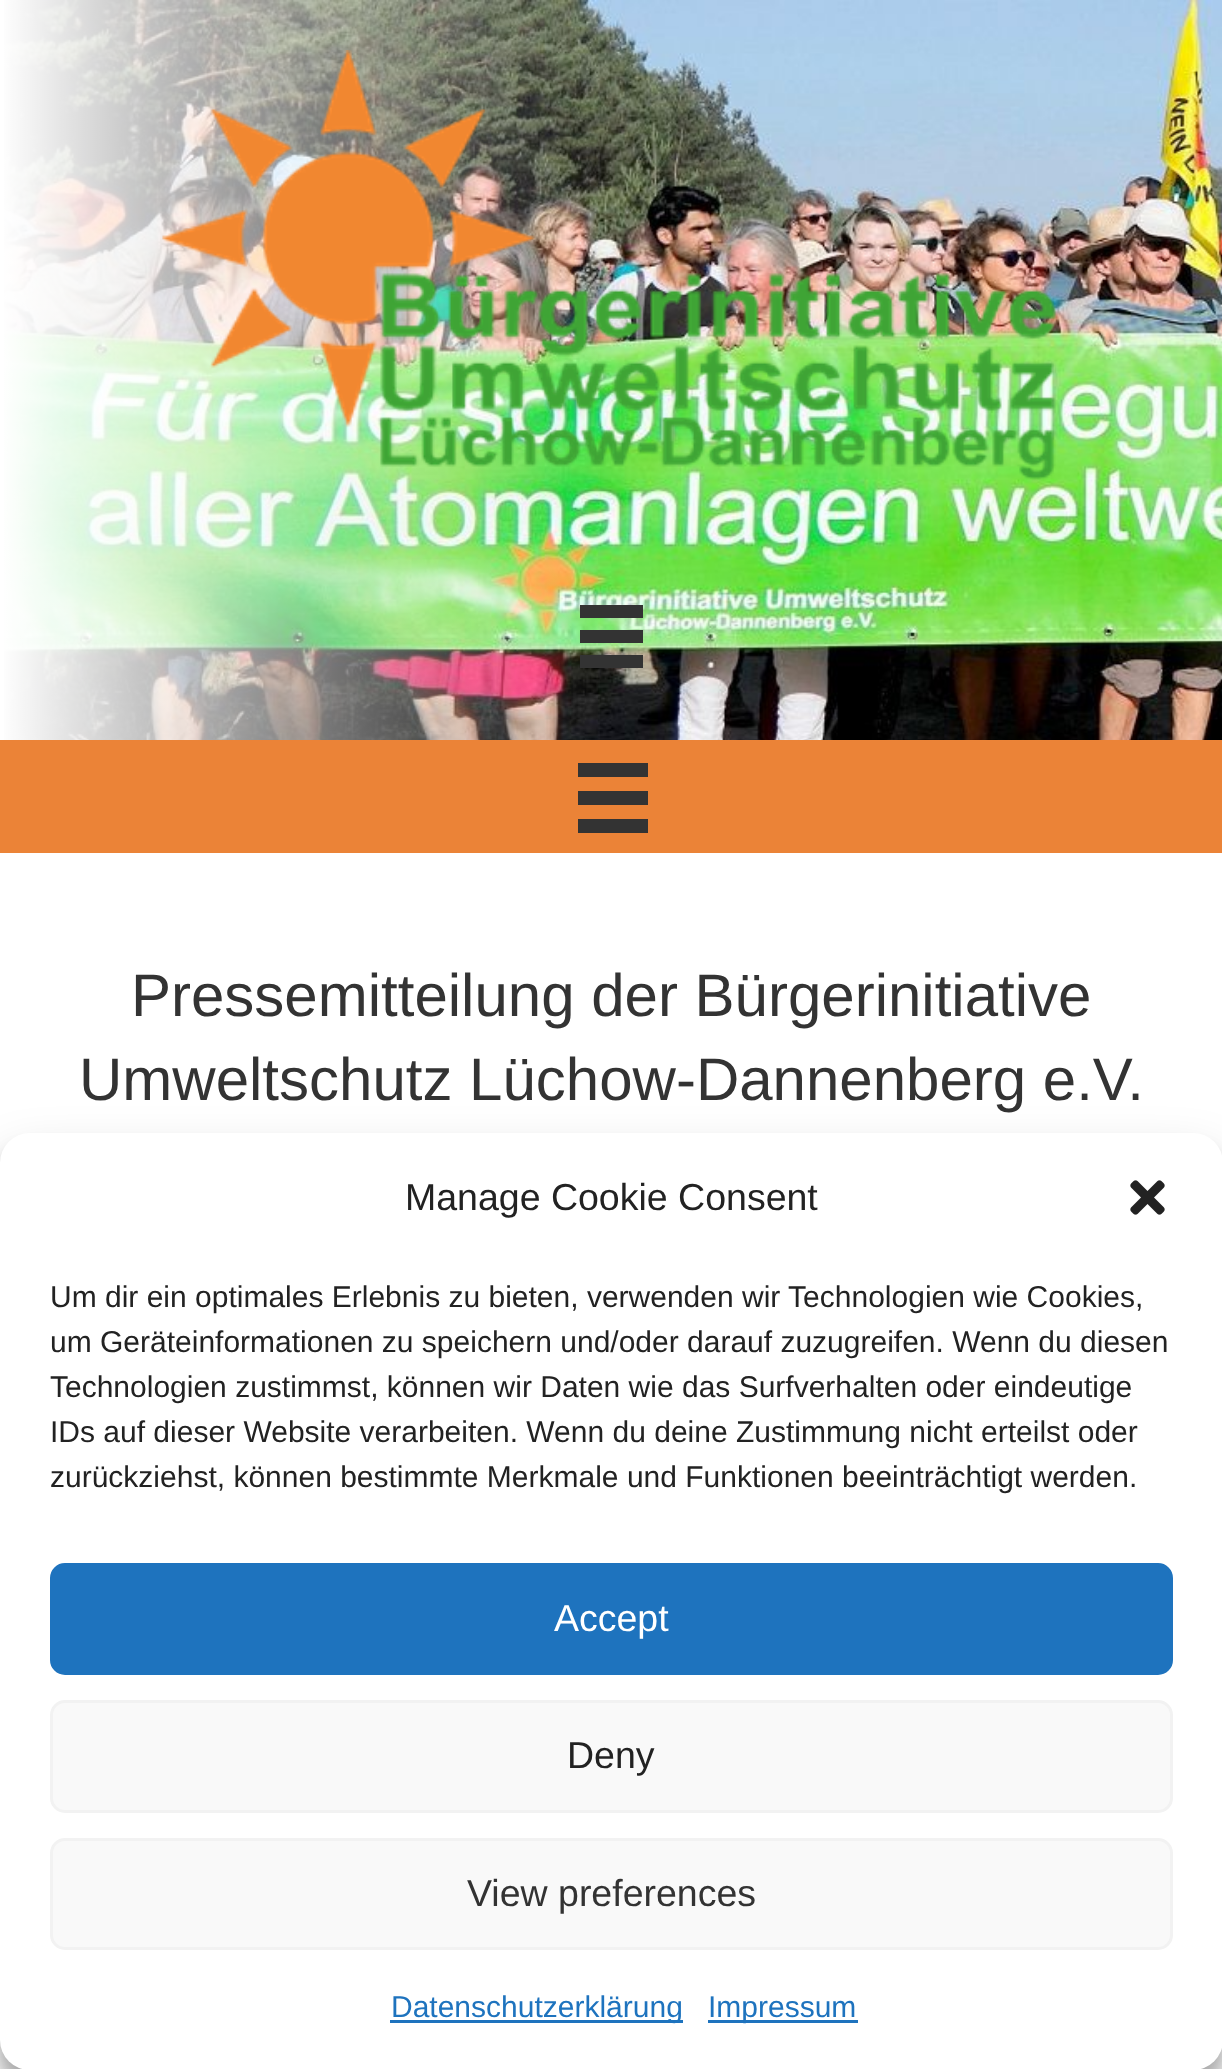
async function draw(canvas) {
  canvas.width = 1222;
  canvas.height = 2069;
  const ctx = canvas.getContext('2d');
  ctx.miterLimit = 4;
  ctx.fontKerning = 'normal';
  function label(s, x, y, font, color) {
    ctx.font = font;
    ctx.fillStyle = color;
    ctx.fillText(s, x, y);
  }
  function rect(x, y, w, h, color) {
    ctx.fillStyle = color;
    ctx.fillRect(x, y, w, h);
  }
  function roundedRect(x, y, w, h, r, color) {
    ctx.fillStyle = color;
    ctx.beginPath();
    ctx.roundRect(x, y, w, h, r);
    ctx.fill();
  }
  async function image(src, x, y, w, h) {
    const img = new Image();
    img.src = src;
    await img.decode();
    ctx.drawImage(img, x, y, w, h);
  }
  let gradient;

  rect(0, 0, 1222, 2069, '#fff');
  await image('assets/img1.png', 4, 0, 1218, 740);
  gradient = ctx.createLinearGradient(0, 426, 613, 426);
  gradient.addColorStop(0, '#fff');
  gradient.addColorStop(1, '#ffffff00');
  ctx.fillStyle = gradient;
  ctx.fillRect(4, 0, 596, 740);
  await image('assets/img2.png', 162, 50, 894, 431);
  rect(580, 605, 63, 13, '#333');
  rect(580, 630, 63, 13, '#333');
  rect(580, 655, 63, 13, '#333');
  rect(0, 740, 1222, 113, '#eb8337');
  rect(578, 763, 70, 14, '#333');
  rect(578, 791, 70, 14, '#333');
  rect(578, 819, 70, 14, '#333');
  label('Pressemitteilung der Bürgerinitiative', 131, 1016, '60px Liberation Sans', '#333');
  label('Umweltschutz Lüchow-Dannenberg e.V.', 79, 1100, '60px Liberation Sans', '#333');
  ctx.fillStyle = '#0000003b';
  ctx.filter = 'blur(7.5px)';
  ctx.beginPath();
  ctx.roundRect(0, 1148, 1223, 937, 30);
  ctx.fill();
  ctx.filter = 'none';
  ctx.fillStyle = '#00000030';
  ctx.filter = 'blur(25px)';
  ctx.beginPath();
  ctx.roundRect(0, 1158, 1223, 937, 30);
  ctx.fill();
  ctx.filter = 'none';
  roundedRect(0, 1133, 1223, 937, 30, '#fff');
  label('Manage Cookie Consent', 405, 1210, '37.5px Liberation Sans', '#222');
  await image('assets/img3.png', 1130, 1180, 35, 35);
  label('Um dir ein optimales Erlebnis zu bieten, verwenden wir Technologien wie Cookies,', 50, 1307, '30px Liberation Sans', '#222');
  label('um Geräteinformationen zu speichern und/oder darauf zuzugreifen. Wenn du diesen', 50, 1352, '30px Liberation Sans', '#222');
  label('Technologien zustimmst, können wir Daten wie das Surfverhalten oder eindeutige', 50, 1397, '30px Liberation Sans', '#222');
  label('IDs auf dieser Website verarbeiten. Wenn du deine Zustimmung nicht erteilst oder', 50, 1442, '30px Liberation Sans', '#222');
  label('zurückziehst, können bestimmte Merkmale und Funktionen beeinträchtigt werden.', 50, 1487, '30px Liberation Sans', '#222');
  ctx.fillStyle = '#1e73be';
  ctx.beginPath();
  ctx.roundRect(51.5, 1564.5, 1120, 109, 13.5);
  ctx.fill();
  ctx.strokeStyle = '#1e73be';
  ctx.lineWidth = 3;
  ctx.stroke();
  label('Accept', 554, 1631, '37.5px Liberation Sans', '#fff');
  ctx.fillStyle = '#f9f9f9';
  ctx.beginPath();
  ctx.roundRect(51.5, 1701.5, 1120, 110, 13.5);
  ctx.fill();
  ctx.strokeStyle = '#f2f2f2';
  ctx.stroke();
  label('Deny', 567, 1768, '37.5px Liberation Sans', '#222');
  ctx.fillStyle = '#f9f9f9';
  ctx.beginPath();
  ctx.roundRect(51.5, 1839.5, 1120, 109, 13.5);
  ctx.fill();
  ctx.stroke();
  label('View preferences', 467, 1906, '37.5px Liberation Sans', '#333');
  rect(390, 2020, 293, 3, '#1e73be');
  label('Datenschutzerklärung', 391, 2017, '30px Liberation Sans', '#1e73be');
  rect(708, 2020, 150, 3, '#1e73be');
  label('Impressum', 708, 2017, '30px Liberation Sans', '#1e73be');
}

draw(document.querySelector('canvas'));
